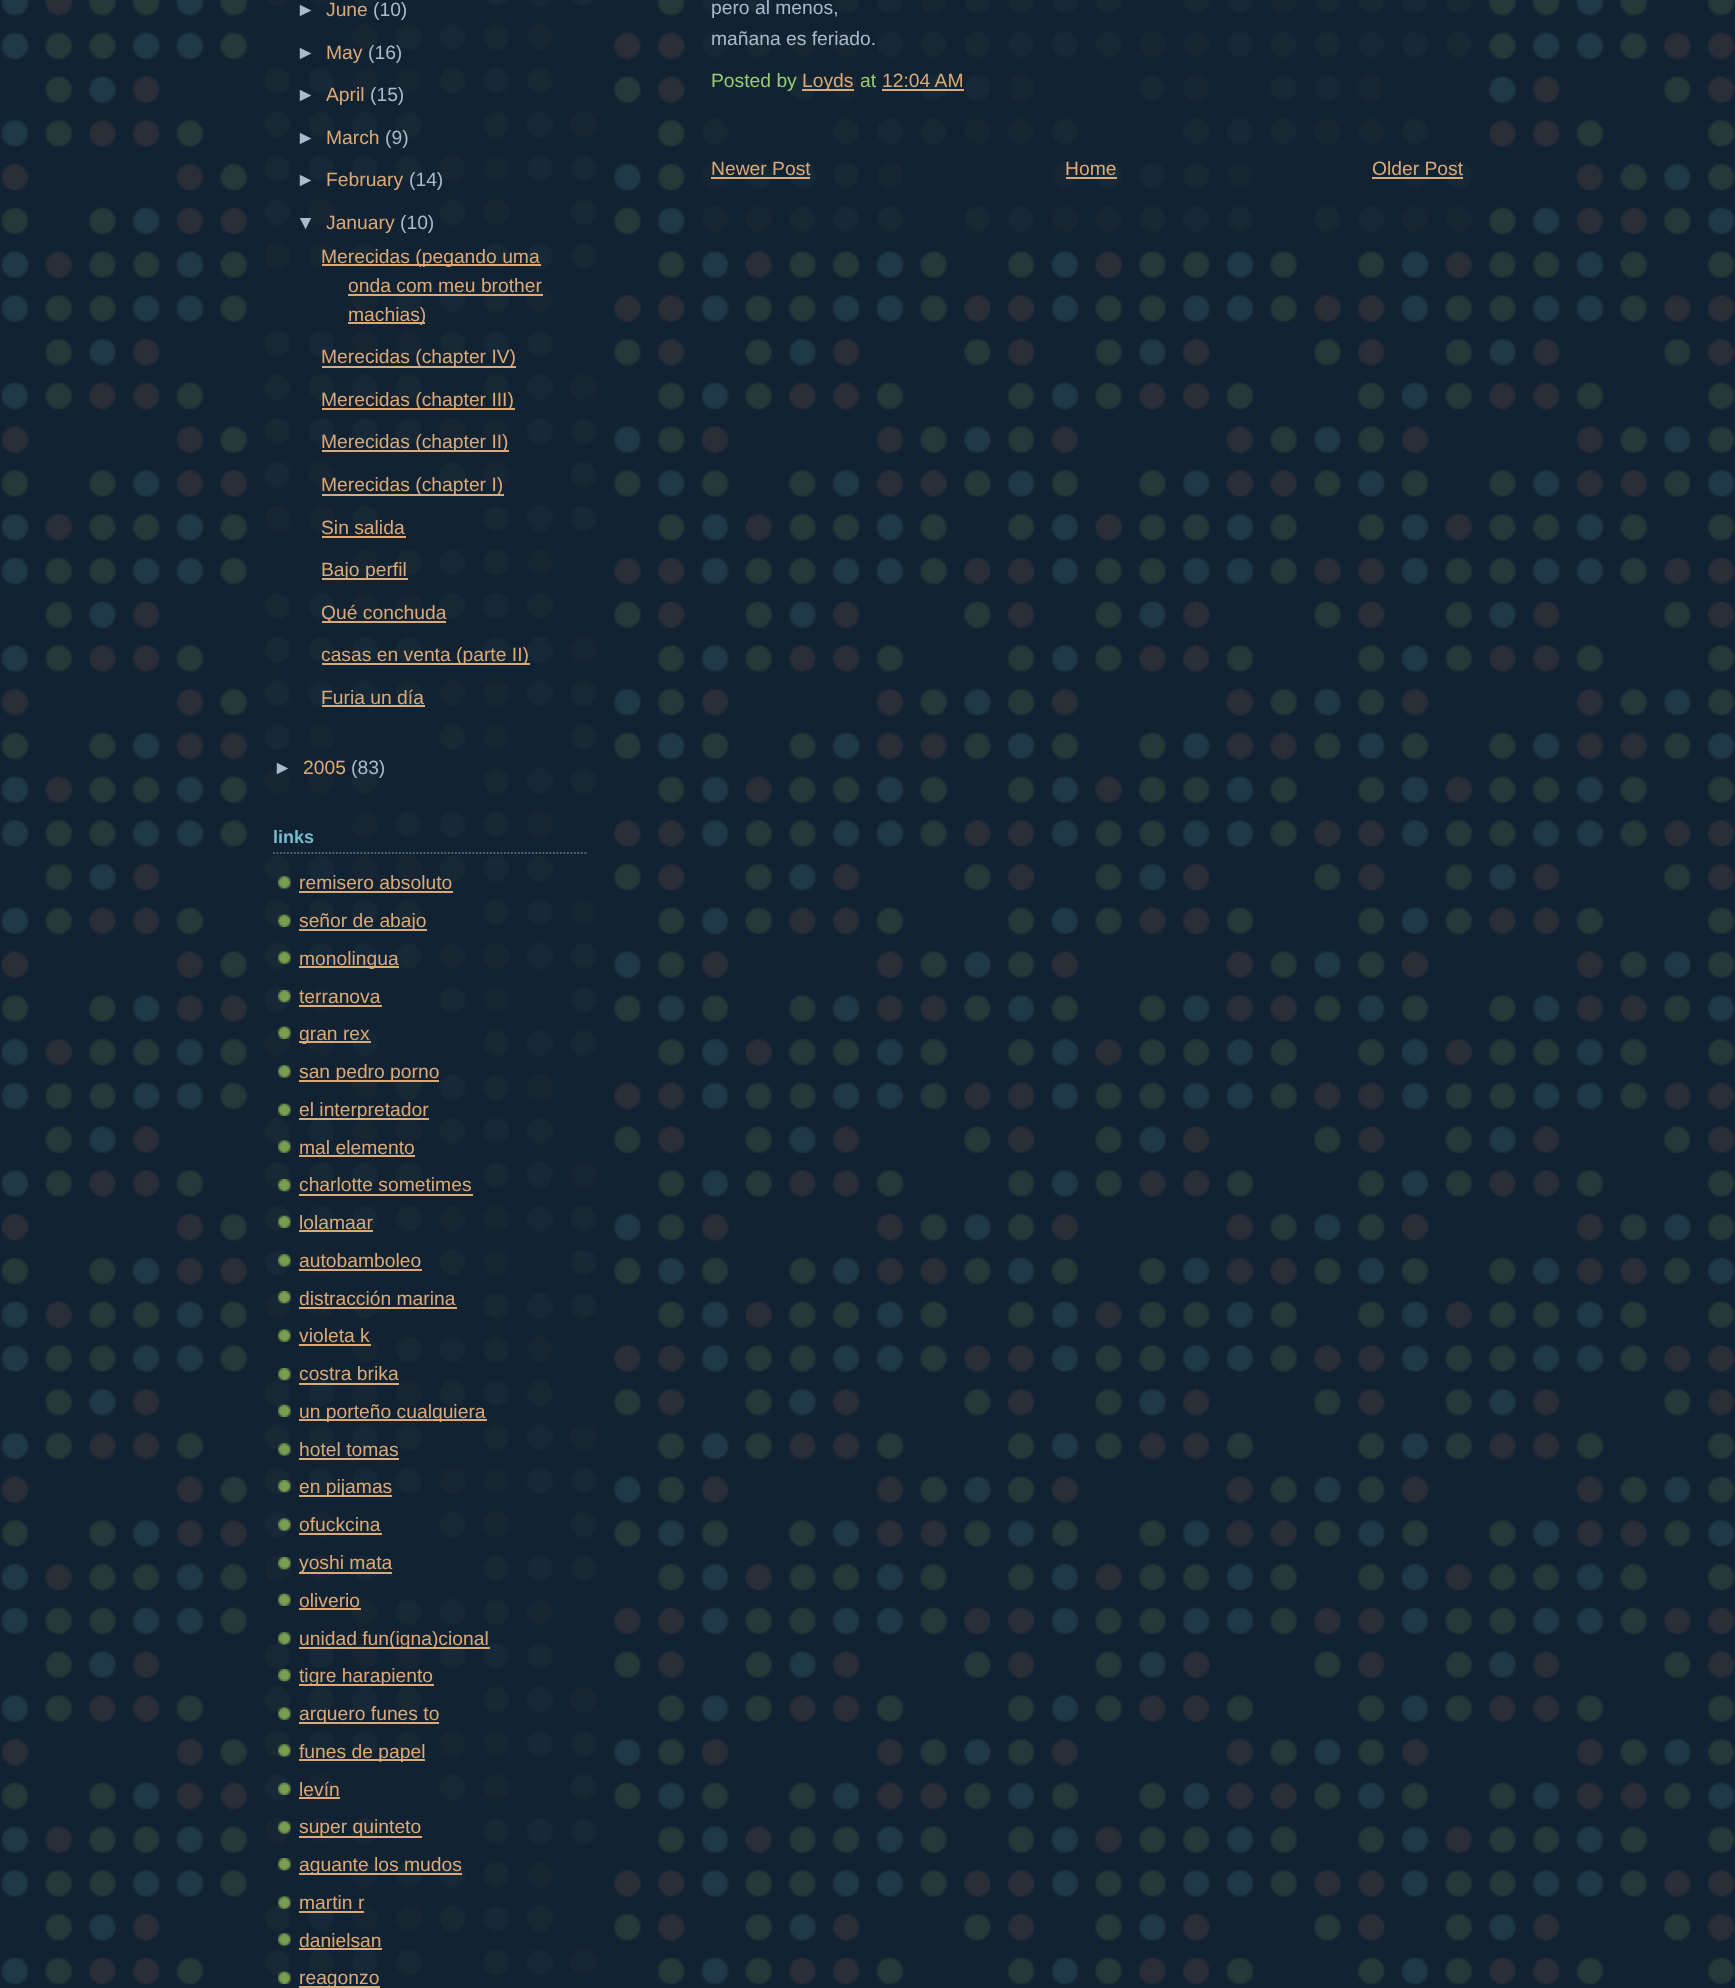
async function draw(canvas) {
  canvas.width = 1735;
  canvas.height = 1988;
  const ctx = canvas.getContext('2d');
  ctx.miterLimit = 4;
  ctx.fontKerning = 'normal';
  function label(s, x, y, font, color) {
    ctx.font = font;
    ctx.fillStyle = color;
    ctx.fillText(s, x, y);
  }
  function rect(x, y, w, h, color) {
    ctx.fillStyle = color;
    ctx.fillRect(x, y, w, h);
  }
  async function image(src, x, y, w, h) {
    const img = new Image();
    img.src = src;
    await img.decode();
    ctx.drawImage(img, x, y, w, h);
  }
  let path;

  rect(0, 0, 1735, 1988, '#123');
  await image('assets/img1.png', 1, 0, 1734, 1985);
  await image('assets/img2.png', 264, 0, 333, 1985);
  label('►', 296, 16, '19.3px Liberation Sans', '#abc');
  label('June', 326, 16, '19.3px Liberation Sans', '#da7');
  label('(10)', 373, 16, '19.3px Liberation Sans', '#abc');
  label('►', 296, 59, '19.3px Liberation Sans', '#abc');
  label('May', 326, 59, '19.3px Liberation Sans', '#da7');
  label('(16)', 368, 59, '19.3px Liberation Sans', '#abc');
  label('►', 296, 101, '19.3px Liberation Sans', '#abc');
  label('April', 326, 101, '19.3px Liberation Sans', '#da7');
  label('(15)', 370, 101, '19.3px Liberation Sans', '#abc');
  label('►', 296, 144, '19.3px Liberation Sans', '#abc');
  label('March', 326, 144, '19.3px Liberation Sans', '#da7');
  label('(9)', 385, 144, '19.3px Liberation Sans', '#abc');
  label('►', 296, 186, '19.3px Liberation Sans', '#abc');
  label('February', 326, 186, '19.3px Liberation Sans', '#da7');
  label('(14)', 409, 186, '19.3px Liberation Sans', '#abc');
  label('▼', 296, 229, '19.3px Liberation Sans', '#abc');
  label('January', 326, 229, '19.3px Liberation Sans', '#da7');
  label('(10)', 400, 229, '19.3px Liberation Sans', '#abc');
  rect(322, 264, 219, 2, '#da7');
  label('Merecidas (pegando uma', 321, 263, '19.3px Liberation Sans', '#da7');
  label('onda com meu brother', 348, 292, '19.3px Liberation Sans', '#da7');
  rect(348, 294, 195, 2, '#da7');
  rect(348, 322, 77, 2, '#da7');
  label('machias)', 348, 321, '19.3px Liberation Sans', '#da7');
  rect(322, 366, 194, 2, '#da7');
  label('Merecidas (chapter IV)', 321, 363, '19.3px Liberation Sans', '#da7');
  rect(322, 408, 193, 2, '#da7');
  label('Merecidas (chapter III)', 321, 406, '19.3px Liberation Sans', '#da7');
  rect(322, 450, 187, 2, '#da7');
  label('Merecidas (chapter II)', 321, 448, '19.3px Liberation Sans', '#da7');
  rect(322, 494, 182, 2, '#da7');
  label('Merecidas (chapter I)', 321, 491, '19.3px Liberation Sans', '#da7');
  label('Sin salida', 321, 534, '19.3px Liberation Sans', '#da7');
  rect(322, 536, 84, 2, '#da7');
  rect(322, 578, 86, 2, '#da7');
  label('Bajo perfil', 321, 576, '19.3px Liberation Sans', '#da7');
  rect(322, 621, 124, 2, '#da7');
  label('Qué conchuda', 321, 619, '19.3px Liberation Sans', '#da7');
  rect(322, 663, 208, 2, '#da7');
  label('casas en venta (parte II)', 321, 661, '19.3px Liberation Sans', '#da7');
  label('Furia un día', 321, 704, '19.3px Liberation Sans', '#da7');
  rect(322, 705, 103, 2, '#da7');
  label('►', 273, 774, '19.3px Liberation Sans', '#abc');
  label('2005', 303, 774, '19.3px Liberation Sans', '#da7');
  label('(83)', 351, 774, '19.3px Liberation Sans', '#abc');
  path = new Path2D('M273 853H588');
  ctx.strokeStyle = '#567';
  ctx.lineWidth = 1.8;
  ctx.setLineDash([1.75, 1.75]);
  ctx.stroke(path);
  label('links', 273, 843, 'bold 18px Liberation Sans', '#7bc');
  await image('assets/img3.png', 278, 876, 13, 13);
  label('remisero absoluto', 299, 889, '19.3px Liberation Sans', '#da7');
  rect(299, 891, 154, 2, '#da7');
  await image('assets/img4.png', 278, 914, 13, 13);
  rect(299, 929, 128, 2, '#da7');
  label('señor de abajo', 299, 927, '19.3px Liberation Sans', '#da7');
  await image('assets/img5.png', 278, 951, 13, 13);
  rect(299, 966, 100, 2, '#da7');
  label('monolingua', 299, 965, '19.3px Liberation Sans', '#da7');
  await image('assets/img6.png', 278, 990, 13, 13);
  label('terranova', 299, 1003, '19.3px Liberation Sans', '#da7');
  rect(299, 1005, 83, 2, '#da7');
  await image('assets/img7.png', 278, 1026, 13, 13);
  rect(299, 1041, 72, 2, '#da7');
  label('gran rex', 299, 1040, '19.3px Liberation Sans', '#da7');
  await image('assets/img8.png', 278, 1065, 13, 13);
  rect(299, 1080, 140, 2, '#da7');
  label('san pedro porno', 299, 1078, '19.3px Liberation Sans', '#da7');
  await image('assets/img9.png', 278, 1103, 13, 13);
  rect(299, 1118, 130, 2, '#da7');
  label('el interpretador', 299, 1116, '19.3px Liberation Sans', '#da7');
  await image('assets/img10.png', 278, 1140, 13, 13);
  label('mal elemento', 299, 1154, '19.3px Liberation Sans', '#da7');
  rect(299, 1155, 116, 2, '#da7');
  await image('assets/img11.png', 278, 1179, 13, 13);
  label('charlotte sometimes', 299, 1191, '19.3px Liberation Sans', '#da7');
  rect(299, 1194, 174, 2, '#da7');
  await image('assets/img12.png', 278, 1215, 13, 13);
  label('lolamaar', 299, 1229, '19.3px Liberation Sans', '#da7');
  rect(299, 1230, 74, 2, '#da7');
  await image('assets/img13.png', 278, 1254, 13, 13);
  label('autobamboleo', 299, 1267, '19.3px Liberation Sans', '#da7');
  rect(299, 1269, 123, 2, '#da7');
  await image('assets/img14.png', 278, 1291, 13, 13);
  label('distracción marina', 299, 1305, '19.3px Liberation Sans', '#da7');
  rect(299, 1307, 158, 2, '#da7');
  await image('assets/img15.png', 278, 1329, 13, 13);
  label('violeta k', 299, 1342, '19.3px Liberation Sans', '#da7');
  rect(299, 1344, 72, 2, '#da7');
  await image('assets/img16.png', 278, 1368, 13, 13);
  label('costra brika', 299, 1380, '19.3px Liberation Sans', '#da7');
  rect(299, 1383, 100, 2, '#da7');
  await image('assets/img17.png', 278, 1404, 13, 13);
  rect(299, 1419, 188, 2, '#da7');
  label('un porteño cualquiera', 299, 1418, '19.3px Liberation Sans', '#da7');
  await image('assets/img18.png', 278, 1443, 13, 13);
  label('hotel tomas', 299, 1456, '19.3px Liberation Sans', '#da7');
  rect(299, 1458, 100, 2, '#da7');
  await image('assets/img19.png', 278, 1480, 13, 13);
  rect(299, 1495, 93, 2, '#da7');
  label('en pijamas', 299, 1493, '19.3px Liberation Sans', '#da7');
  await image('assets/img20.png', 278, 1518, 13, 13);
  label('ofuckcina', 299, 1531, '19.3px Liberation Sans', '#da7');
  rect(299, 1533, 83, 2, '#da7');
  await image('assets/img21.png', 278, 1557, 13, 13);
  rect(299, 1572, 93, 2, '#da7');
  label('yoshi mata', 299, 1569, '19.3px Liberation Sans', '#da7');
  await image('assets/img9.png', 278, 1593, 13, 13);
  label('oliverio', 299, 1607, '19.3px Liberation Sans', '#da7');
  rect(299, 1608, 62, 2, '#da7');
  await image('assets/img22.png', 278, 1632, 13, 13);
  rect(299, 1647, 191, 2, '#da7');
  label('unidad fun(igna)cional', 299, 1645, '19.3px Liberation Sans', '#da7');
  await image('assets/img23.png', 278, 1669, 13, 13);
  rect(299, 1684, 135, 2, '#da7');
  label('tigre harapiento', 299, 1682, '19.3px Liberation Sans', '#da7');
  await image('assets/img24.png', 278, 1707, 13, 13);
  rect(299, 1722, 140, 2, '#da7');
  label('arquero funes to', 299, 1720, '19.3px Liberation Sans', '#da7');
  await image('assets/img25.png', 278, 1744, 13, 13);
  rect(299, 1759, 126, 2, '#da7');
  label('funes de papel', 299, 1758, '19.3px Liberation Sans', '#da7');
  await image('assets/img26.png', 278, 1782, 13, 13);
  label('levín', 299, 1796, '19.3px Liberation Sans', '#da7');
  rect(299, 1797, 41, 2, '#da7');
  await image('assets/img27.png', 278, 1821, 13, 13);
  rect(299, 1836, 123, 2, '#da7');
  label('super quinteto', 299, 1833, '19.3px Liberation Sans', '#da7');
  await image('assets/img28.png', 278, 1858, 13, 13);
  rect(299, 1873, 163, 2, '#da7');
  label('aguante los mudos', 299, 1871, '19.3px Liberation Sans', '#da7');
  await image('assets/img29.png', 278, 1896, 13, 13);
  label('martin r', 299, 1909, '19.3px Liberation Sans', '#da7');
  rect(299, 1911, 65, 2, '#da7');
  await image('assets/img8.png', 278, 1933, 13, 13);
  label('danielsan', 299, 1947, '19.3px Liberation Sans', '#da7');
  rect(299, 1948, 83, 2, '#da7');
  await image('assets/img30.png', 278, 1971, 13, 13);
  rect(299, 1986, 81, 2, '#da7');
  label('reagonzo', 299, 1984, '19.3px Liberation Sans', '#da7');
  await image('assets/img31.png', 701, 0, 771, 235);
  label('pero al menos,', 711, 14, '19.3px Liberation Sans', '#abc');
  label('mañana es feriado.', 711, 45, '19.3px Liberation Sans', '#abc');
  label('Posted by', 711, 87, '19.3px Liberation Sans', '#9c7');
  rect(802, 89, 52, 2, '#da7');
  label('Loyds', 802, 87, '19.3px Liberation Sans', '#da7');
  label('at', 860, 87, '19.3px Liberation Sans', '#9c7');
  label('12:04 AM', 882, 87, '19.3px Liberation Sans', '#da7');
  rect(882, 89, 82, 2, '#da7');
  label('Newer Post', 711, 175, '19.3px Liberation Sans', '#da7');
  rect(711, 177, 99, 2, '#da7');
  label('Home', 1065, 175, '19.3px Liberation Sans', '#da7');
  rect(1066, 177, 51, 2, '#da7');
  label('Older Post', 1372, 175, '19.3px Liberation Sans', '#da7');
  rect(1372, 177, 91, 2, '#da7');
}

draw(document.querySelector('canvas'));
